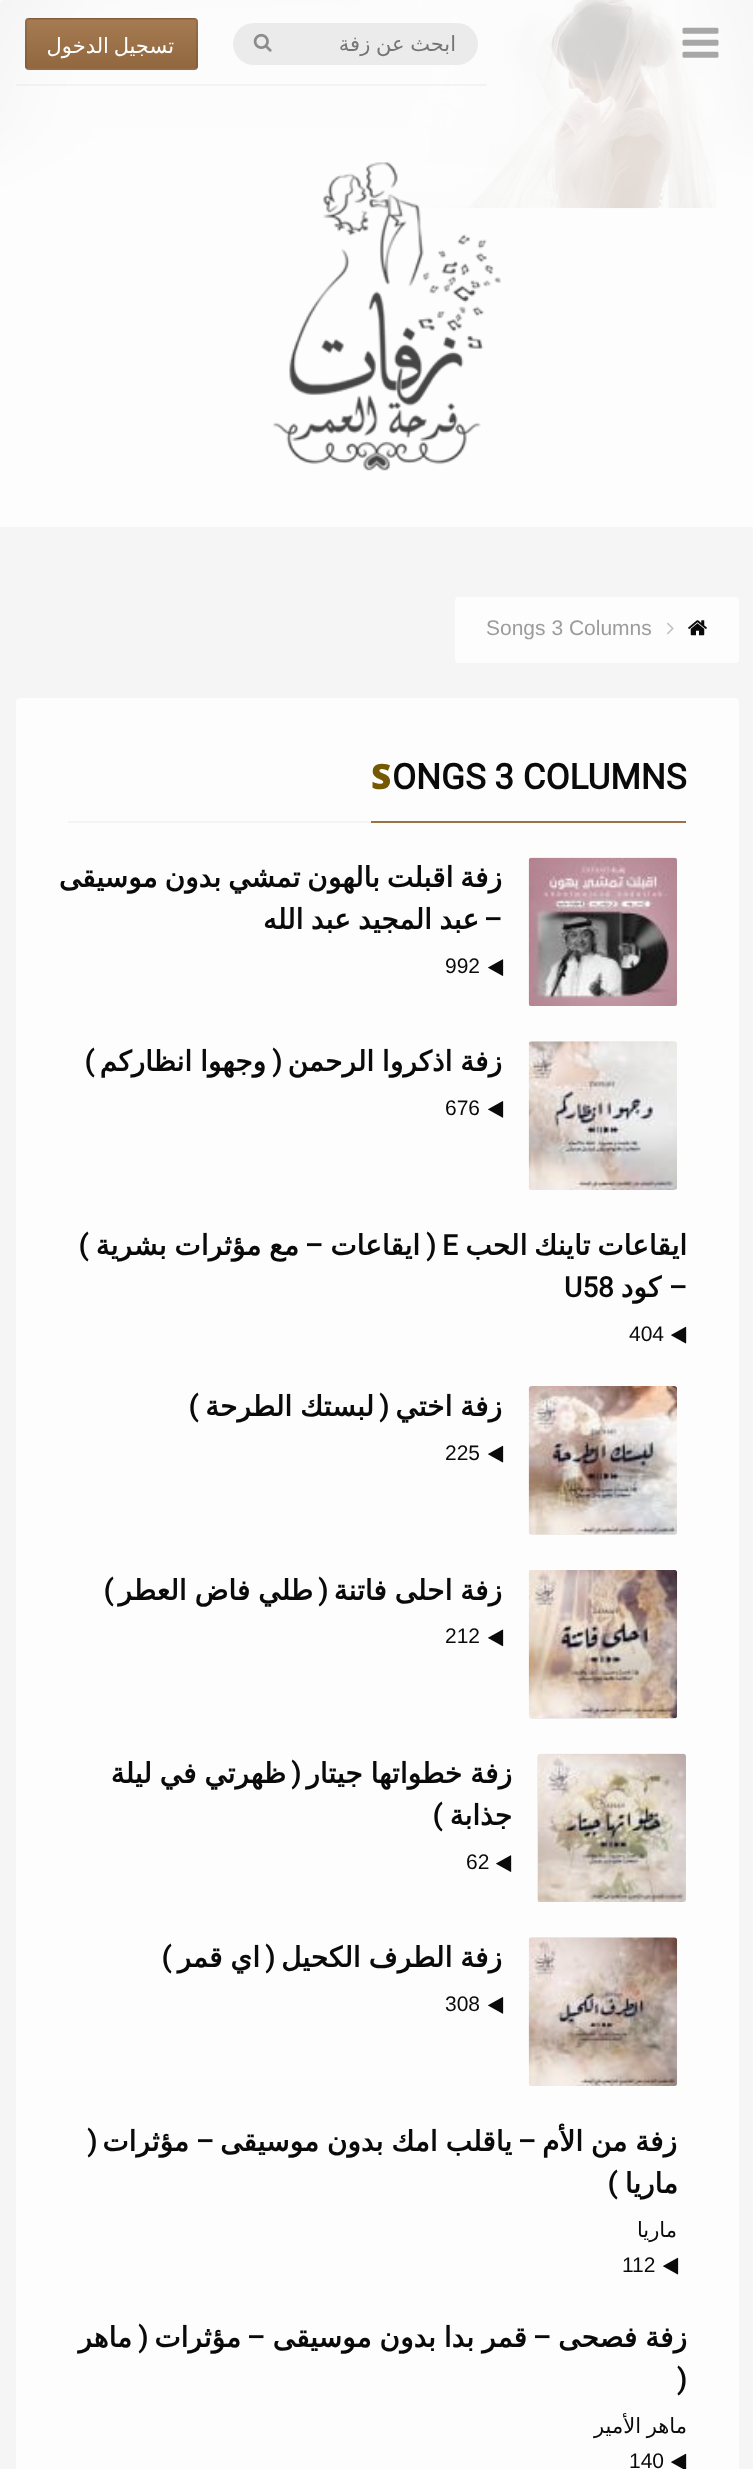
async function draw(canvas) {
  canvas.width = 753;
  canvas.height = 2469;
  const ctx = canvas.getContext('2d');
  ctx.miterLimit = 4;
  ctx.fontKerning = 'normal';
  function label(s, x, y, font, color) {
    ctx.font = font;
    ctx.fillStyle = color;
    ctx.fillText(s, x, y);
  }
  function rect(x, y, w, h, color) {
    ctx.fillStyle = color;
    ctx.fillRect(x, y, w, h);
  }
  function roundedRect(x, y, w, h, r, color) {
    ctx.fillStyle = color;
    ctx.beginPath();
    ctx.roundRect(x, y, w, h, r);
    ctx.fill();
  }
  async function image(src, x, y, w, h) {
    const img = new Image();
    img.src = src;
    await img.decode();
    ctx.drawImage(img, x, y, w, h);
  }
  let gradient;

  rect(0, 0, 753, 2469, '#f5f5f5');
  rect(0, 0, 753, 527, '#fdfdfd');
  await image('assets/img1.png', 0, 0, 753, 209);
  await image('assets/img2.png', 682, 27, 37, 31);
  rect(16, 84, 471, 2, '#a7a7a71a');
  roundedRect(233, 23, 245, 42, 21, '#ebebeb');
  ctx.wordSpacing = '-1px';
  ctx.direction = 'rtl';
  label('ابحث عن زفة', 456, 51, '21px DejaVu Sans', '#757575');
  await image('assets/img3.png', 253, 33, 19, 19);
  roundedRect(25, 18, 173, 52, 4, '#9e7044');
  ctx.save();
  ctx.beginPath();
  ctx.roundRect(25, 18, 173, 52, 4);
  ctx.clip();
  gradient = ctx.createLinearGradient(26, 19, 26, -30);
  gradient.addColorStop(0, '#00000014');
  gradient.addColorStop(0.5, '#80808014');
  gradient.addColorStop(1, '#ffffff14');
  ctx.fillStyle = gradient;
  ctx.fillRect(25, 18, 173, 1);
  ctx.restore();
  gradient = ctx.createLinearGradient(26, 68, 26, 19);
  gradient.addColorStop(0, '#00000014');
  gradient.addColorStop(0.5, '#80808014');
  gradient.addColorStop(1, '#ffffff14');
  ctx.fillStyle = gradient;
  ctx.fillRect(25, 19, 173, 49);
  ctx.save();
  ctx.beginPath();
  ctx.roundRect(25, 18, 173, 52, 4);
  ctx.clip();
  gradient = ctx.createLinearGradient(26, 117, 26, 68);
  gradient.addColorStop(0, '#00000014');
  gradient.addColorStop(0.5, '#80808014');
  gradient.addColorStop(1, '#ffffff14');
  ctx.fillStyle = gradient;
  ctx.fillRect(25, 68, 173, 2);
  ctx.restore();
  ctx.beginPath();
  ctx.roundRect(26, 19, 171, 50, 3);
  ctx.strokeStyle = '#0000001a';
  ctx.lineWidth = 2;
  ctx.stroke();
  ctx.wordSpacing = '-2px';
  label('تسجيل الدخول', 174, 53, '21px DejaVu Sans', '#fff');
  await image('assets/img4.png', 272, 162, 229, 309);
  roundedRect(455, 597, 284, 66, 4, '#fdfdfd');
  await image('assets/img5.png', 688, 620, 19, 16);
  await image('assets/img6.png', 667, 622, 7, 13);
  ctx.wordSpacing = '0px';
  ctx.direction = 'ltr';
  label('Songs 3 Columns', 486, 635, '21px Liberation Sans', '#9c9c9c');
  roundedRect(16, 698, 723, 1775, 4, '#fdfdfd');
  rect(371, 821, 315, 2, '#9e7044');
  label('ONGS 3 COLUMNS', 392, 789, 'bold 35px Roboto', '#0a0a0a');
  label('S', 371, 789, '900 35px Noto Sans', '#755900');
  rect(68, 821, 303, 2, '#f4f4f4');
  await image('assets/img7.png', 528, 857, 149, 149);
  ctx.wordSpacing = '-2px';
  ctx.direction = 'rtl';
  label('زفة اقبلت بالهون تمشي بدون موسيقى', 502, 887, 'bold 28px DejaVu Sans', '#0a0a0a');
  ctx.wordSpacing = '0px';
  label('–', 502, 929, 'bold 28px Roboto', '#0a0a0a');
  ctx.wordSpacing = '-1.5px';
  label('عبد المجيد عبد الله', 479, 929, 'bold 28px DejaVu Sans', '#0a0a0a');
  await image('assets/img8.png', 488, 959, 16, 17);
  ctx.wordSpacing = '0px';
  ctx.direction = 'ltr';
  label('992', 445, 973, '21px Liberation Sans', '#0a0a0a');
  roundedRect(529, 1041, 148, 149, 4, '#ededed');
  await image('assets/img9.png', 528, 1041, 149, 149);
  ctx.wordSpacing = '-1px';
  ctx.direction = 'rtl';
  label('زفة اذكروا الرحمن', 502, 1071, 'bold 28px DejaVu Sans', '#0a0a0a');
  ctx.wordSpacing = '0px';
  label('(', 282, 1071, 'bold 28px Roboto', '#0a0a0a');
  ctx.wordSpacing = '-1px';
  label('وجهوا انظاركم', 266, 1071, 'bold 28px DejaVu Sans', '#0a0a0a');
  ctx.wordSpacing = '0px';
  label(')', 94, 1071, 'bold 28px Roboto', '#0a0a0a');
  await image('assets/img10.png', 488, 1101, 16, 17);
  ctx.direction = 'ltr';
  label('676', 445, 1115, '21px Liberation Sans', '#0a0a0a');
  ctx.wordSpacing = '-2px';
  ctx.direction = 'rtl';
  label('ايقاعات تاينك الحب', 687, 1255, 'bold 28px DejaVu Sans', '#0a0a0a');
  ctx.wordSpacing = '0px';
  ctx.direction = 'ltr';
  label('E', 442, 1255, 'bold 28px Roboto', '#0a0a0a');
  ctx.direction = 'rtl';
  label('(', 436, 1255, 'bold 28px Roboto', '#0a0a0a');
  label('ايقاعات', 420, 1255, 'bold 28px DejaVu Sans', '#0a0a0a');
  label('–', 323, 1255, 'bold 28px Roboto', '#0a0a0a');
  ctx.wordSpacing = '-1px';
  label('مع مؤثرات بشرية', 299, 1255, 'bold 28px DejaVu Sans', '#0a0a0a');
  ctx.wordSpacing = '0px';
  label(')', 88, 1255, 'bold 28px Roboto', '#0a0a0a');
  label('–', 687, 1297, 'bold 28px Roboto', '#0a0a0a');
  label('كود', 661, 1297, 'bold 28px DejaVu Sans', '#0a0a0a');
  ctx.direction = 'ltr';
  label('U58', 564, 1297, 'bold 28px Roboto', '#0a0a0a');
  await image('assets/img11.png', 671, 1326, 16, 18);
  label('404', 629, 1341, '21px Liberation Sans', '#0a0a0a');
  roundedRect(529, 1386, 148, 149, 4, '#ededed');
  await image('assets/img12.png', 528, 1386, 149, 149);
  ctx.wordSpacing = '-1px';
  ctx.direction = 'rtl';
  label('زفة اختي', 502, 1416, 'bold 28px DejaVu Sans', '#0a0a0a');
  ctx.wordSpacing = '0px';
  label('(', 389, 1416, 'bold 28px Roboto', '#0a0a0a');
  ctx.wordSpacing = '-1px';
  label('لبستك الطرحة', 374, 1416, 'bold 28px DejaVu Sans', '#0a0a0a');
  ctx.wordSpacing = '0px';
  label(')', 198, 1416, 'bold 28px Roboto', '#0a0a0a');
  await image('assets/img13.png', 488, 1445, 16, 18);
  ctx.direction = 'ltr';
  label('225', 445, 1460, '21px Liberation Sans', '#0a0a0a');
  roundedRect(529, 1570, 148, 149, 4, '#ededed');
  await image('assets/img14.png', 528, 1570, 150, 149);
  ctx.wordSpacing = '-1px';
  ctx.direction = 'rtl';
  label('زفة احلى فاتنة', 502, 1600, 'bold 28px DejaVu Sans', '#0a0a0a');
  ctx.wordSpacing = '0px';
  label('(', 328, 1600, 'bold 28px Roboto', '#0a0a0a');
  ctx.wordSpacing = '-1px';
  label('طلي فاض العطر', 313, 1600, 'bold 28px DejaVu Sans', '#0a0a0a');
  ctx.wordSpacing = '0px';
  label(')', 113, 1600, 'bold 28px Roboto', '#0a0a0a');
  await image('assets/img15.png', 488, 1629, 16, 18);
  ctx.direction = 'ltr';
  label('212', 445, 1643, '21px Liberation Sans', '#0a0a0a');
  roundedRect(537, 1754, 149, 148, 4, '#ededed');
  await image('assets/img16.png', 538, 1753, 148, 149);
  ctx.wordSpacing = '-1px';
  ctx.direction = 'rtl';
  label('زفة خطواتها جيتار', 512, 1783, 'bold 28px DejaVu Sans', '#0a0a0a');
  ctx.wordSpacing = '0px';
  label('(', 301, 1783, 'bold 28px Roboto', '#0a0a0a');
  ctx.wordSpacing = '-1px';
  label('ظهرتي في ليلة', 286, 1783, 'bold 28px DejaVu Sans', '#0a0a0a');
  ctx.wordSpacing = '0px';
  label('جذابة', 512, 1825, 'bold 28px DejaVu Sans', '#0a0a0a');
  label(')', 442, 1825, 'bold 28px Roboto', '#0a0a0a');
  await image('assets/img17.png', 496, 1855, 16, 17);
  ctx.direction = 'ltr';
  label('62', 466, 1869, '21px Liberation Sans', '#0a0a0a');
  roundedRect(529, 1937, 148, 149, 4, '#ededed');
  await image('assets/img18.png', 528, 1937, 150, 149);
  ctx.wordSpacing = '-1px';
  ctx.direction = 'rtl';
  label('زفة الطرف الكحيل', 502, 1967, 'bold 28px DejaVu Sans', '#0a0a0a');
  ctx.wordSpacing = '0px';
  label('(', 275, 1967, 'bold 28px Roboto', '#0a0a0a');
  ctx.wordSpacing = '-1px';
  label('اي قمر', 260, 1967, 'bold 28px DejaVu Sans', '#0a0a0a');
  ctx.wordSpacing = '0px';
  label(')', 171, 1967, 'bold 28px Roboto', '#0a0a0a');
  await image('assets/img10.png', 488, 1997, 16, 17);
  ctx.direction = 'ltr';
  label('308', 445, 2011, '21px Liberation Sans', '#0a0a0a');
  ctx.wordSpacing = '-1px';
  ctx.direction = 'rtl';
  label('زفة من الأم', 677, 2151, 'bold 28px DejaVu Sans', '#0a0a0a');
  ctx.wordSpacing = '0px';
  label('–', 536, 2151, 'bold 28px Roboto', '#0a0a0a');
  ctx.wordSpacing = '-1px';
  label('ياقلب امك بدون موسيقى', 512, 2151, 'bold 28px DejaVu Sans', '#0a0a0a');
  ctx.wordSpacing = '0px';
  label('–', 214, 2151, 'bold 28px Roboto', '#0a0a0a');
  label('مؤثرات', 189, 2151, 'bold 28px DejaVu Sans', '#0a0a0a');
  label('(', 97, 2151, 'bold 28px Roboto', '#0a0a0a');
  label('ماريا', 678, 2193, 'bold 28px DejaVu Sans', '#0a0a0a');
  label(')', 617, 2193, 'bold 28px Roboto', '#0a0a0a');
  label('ماريا', 677, 2237, '21px DejaVu Sans', '#0a0a0a');
  await image('assets/img13.png', 663, 2257, 16, 18);
  ctx.direction = 'ltr';
  label('112', 622, 2272, '21px Liberation Sans', '#0a0a0a');
  ctx.wordSpacing = '-1px';
  ctx.direction = 'rtl';
  label('زفة فصحى', 687, 2347, 'bold 28px DejaVu Sans', '#0a0a0a');
  ctx.wordSpacing = '0px';
  label('–', 551, 2347, 'bold 28px Roboto', '#0a0a0a');
  ctx.wordSpacing = '-1px';
  label('قمر بدا بدون موسيقى', 527, 2347, 'bold 28px DejaVu Sans', '#0a0a0a');
  ctx.wordSpacing = '0px';
  label('–', 265, 2347, 'bold 28px Roboto', '#0a0a0a');
  label('مؤثرات', 241, 2347, 'bold 28px DejaVu Sans', '#0a0a0a');
  label('(', 148, 2347, 'bold 28px Roboto', '#0a0a0a');
  label('ماهر', 132, 2347, 'bold 28px DejaVu Sans', '#0a0a0a');
  ctx.direction = 'ltr';
  label(')', 677, 2389, 'bold 28px Roboto', '#0a0a0a');
  ctx.wordSpacing = '-1px';
  ctx.direction = 'rtl';
  label('ماهر الأمير', 687, 2433, '21px DejaVu Sans', '#0a0a0a');
  await image('assets/img19.png', 671, 2453, 16, 16);
  ctx.wordSpacing = '0px';
  ctx.direction = 'ltr';
  label('140', 629, 2468, '21px Liberation Sans', '#0a0a0a');
}

draw(document.querySelector('canvas'));
